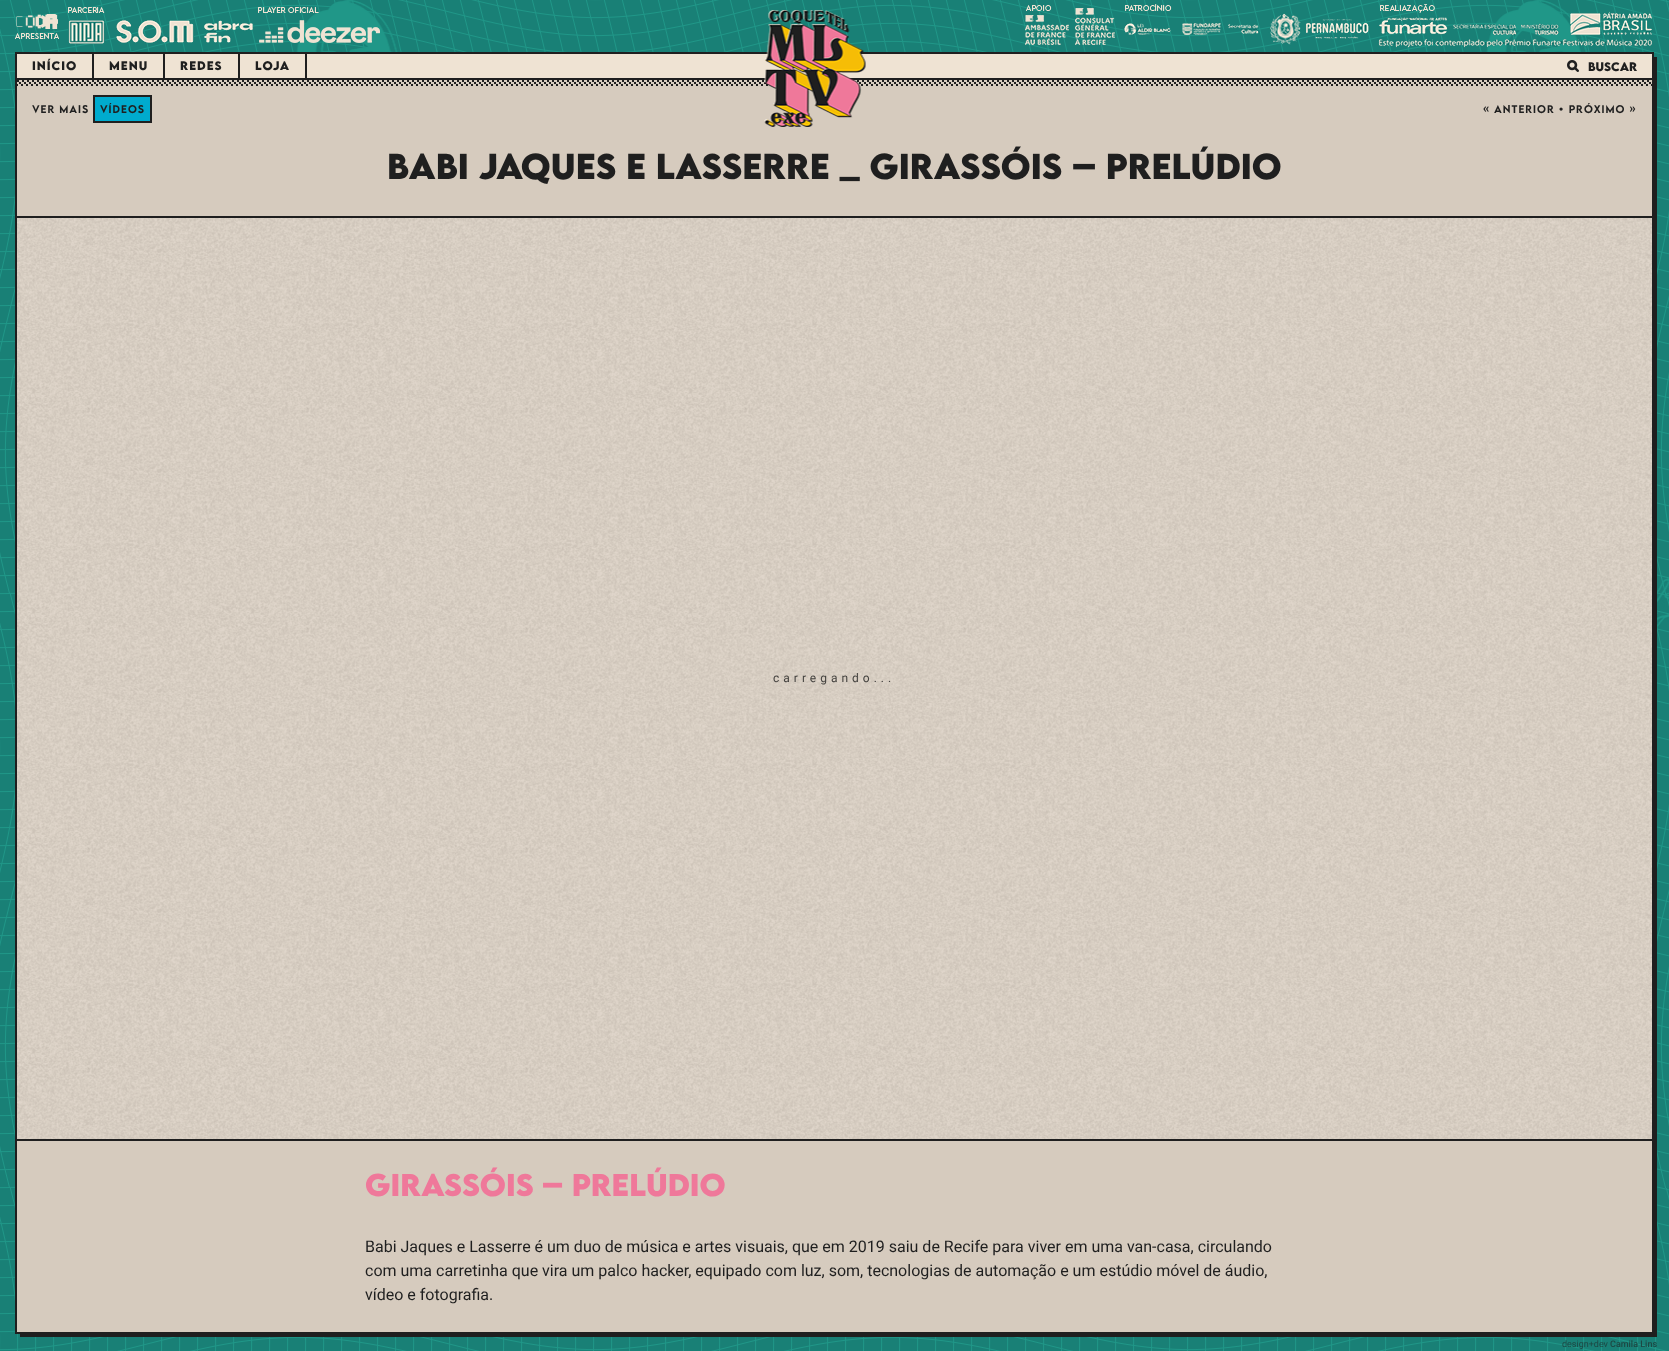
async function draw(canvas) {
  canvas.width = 1669;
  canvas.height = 1351;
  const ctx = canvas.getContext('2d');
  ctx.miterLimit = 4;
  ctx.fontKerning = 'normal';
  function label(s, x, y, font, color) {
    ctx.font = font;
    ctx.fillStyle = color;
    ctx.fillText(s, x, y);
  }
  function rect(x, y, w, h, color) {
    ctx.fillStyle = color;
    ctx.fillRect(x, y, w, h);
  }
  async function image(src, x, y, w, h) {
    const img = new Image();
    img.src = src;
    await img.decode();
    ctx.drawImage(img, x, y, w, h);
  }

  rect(0, 0, 1669, 1351, '#fff');
  await image('assets/img1.png', 0, 0, 1669, 1351);
  await image('assets/img2.png', 296, 0, 1373, 628);
  await image('assets/img3.png', 15, 7, 365, 37);
  ctx.fillStyle = '#efe3d3';
  ctx.beginPath();
  ctx.rect(16, 53, 1637, 26);
  ctx.fill();
  ctx.strokeStyle = '#1f1f1f';
  ctx.lineWidth = 2;
  ctx.stroke();
  ctx.fillStyle = '#d6cbbe';
  ctx.beginPath();
  ctx.rect(16, 79, 1637, 1254);
  ctx.fill();
  ctx.stroke();
  await image('assets/img7.png', 17, 80, 1635, 6);
  await image('assets/img4.png', 764, 10, 102, 117);
  await image('assets/img5.png', 1025, 4, 628, 44);
  rect(92, 54, 2, 24, '#1f1f1f');
  ctx.letterSpacing = '1px';
  label('Início', 32, 70, 'bold 11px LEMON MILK', '#1f1f1f');
  rect(163, 54, 2, 24, '#1f1f1f');
  label('Menu', 109, 70, 'bold 11px LEMON MILK', '#1f1f1f');
  rect(238, 54, 2, 24, '#1f1f1f');
  label('Redes', 180, 70, 'bold 11px LEMON MILK', '#1f1f1f');
  rect(305, 54, 2, 24, '#1f1f1f');
  label('Loja', 255, 70, 'bold 11px LEMON MILK', '#1f1f1f');
  await image('assets/img6.png', 1567, 60, 12, 12);
  ctx.letterSpacing = '0px';
  label('Buscar', 1588, 71, 'bold 11px LEMON MILK', '#1f1f1f');
  rect(20, 1334, 1637, 3, '#1f1f1f');
  rect(1654, 57, 3, 1280, '#1f1f1f');
  ctx.letterSpacing = '1px';
  label('Ver mais', 32, 113, '500 10px LEMON MILK', '#1f1f1f');
  ctx.fillStyle = '#00abce';
  ctx.beginPath();
  ctx.rect(94, 96, 57, 26);
  ctx.fill();
  ctx.stroke();
  label('Vídeos', 100, 113, '500 10px LEMON MILK', '#1f1f1f');
  label('« Anterior • Próximo »', 1483, 113, '500 10px LEMON MILK', '#1f1f1f');
  ctx.letterSpacing = '0px';
  label('Babi Jaques e Lasserre _ Girassóis – Prelúdio', 387, 179, 'bold 32px LEMON MILK', '#1f1f1f');
  await image('assets/img8.png', 17, 218, 1635, 921);
  rect(17, 216, 1635, 2, '#1f1f1f');
  rect(17, 1139, 1635, 2, '#1f1f1f');
  ctx.letterSpacing = '4px';
  label('carregando...', 773, 682, '12px Roboto', '#44423f');
  ctx.letterSpacing = '0px';
  label('Girassóis – Prelúdio', 365, 1196, 'bold 28px LEMON MILK', '#ef789a');
  label('Babi Jaques e Lasserre é um duo de música e artes visuais, que em 2019 saiu de Recife para viver em uma van-casa, circulando', 365, 1252, '16px Roboto', '#1f1f1f');
  label('com uma carretinha que vira um palco hacker, equipado com luz, som, tecnologias de automação e um estúdio móvel de áudio,', 365, 1276, '16px Roboto', '#1f1f1f');
  label('vídeo e fotografia.', 365, 1300, '16px Roboto', '#1f1f1f');
  label('design+dev', 1562, 1347, '9px Roboto', '#1d4743');
  label('Camila Lins', 1610, 1347, '500 9px Roboto', '#1d4743');
}

draw(document.querySelector('canvas'));
